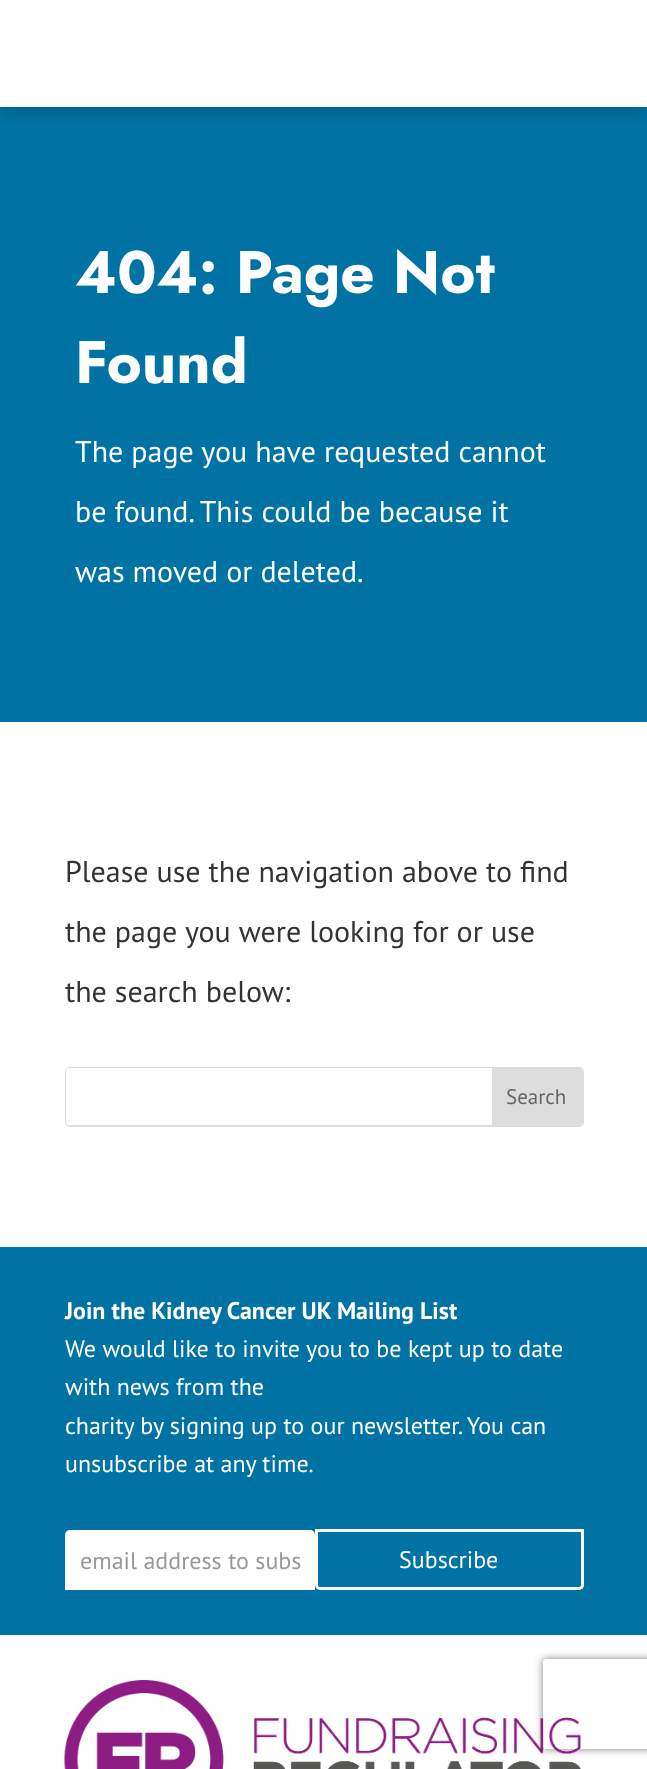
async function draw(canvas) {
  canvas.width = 647;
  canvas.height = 1769;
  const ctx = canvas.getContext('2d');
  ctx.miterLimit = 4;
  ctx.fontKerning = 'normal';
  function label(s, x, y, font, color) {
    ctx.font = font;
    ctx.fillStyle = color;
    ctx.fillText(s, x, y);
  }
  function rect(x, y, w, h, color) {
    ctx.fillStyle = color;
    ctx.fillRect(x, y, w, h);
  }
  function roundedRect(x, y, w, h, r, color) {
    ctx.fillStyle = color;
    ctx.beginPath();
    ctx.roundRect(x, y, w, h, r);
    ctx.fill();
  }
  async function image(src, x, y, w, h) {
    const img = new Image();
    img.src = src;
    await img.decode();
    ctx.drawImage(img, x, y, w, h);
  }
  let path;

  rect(0, 0, 647, 1769, '#fff');
  rect(0, 107, 647, 615, '#0073a4');
  ctx.save();
  path = new Path2D('M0 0H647V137H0ZM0-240H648V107H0Z');
  ctx.clip(path, 'evenodd');
  ctx.fillStyle = '#00000029';
  ctx.filter = 'blur(7.5px)';
  ctx.beginPath();
  ctx.rect(0, -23, 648, 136);
  ctx.fill();
  ctx.filter = 'none';
  ctx.restore();
  label('404: Page Not', 75, 293, 'bold 60px Jost', '#fff');
  label('Found', 75, 383, 'bold 60px Jost', '#fff');
  label('The page you have requested cannot', 75, 462, '30px PT Sans', '#fff');
  label('be found. This could be because it', 75, 522, '30px PT Sans', '#fff');
  label('was moved or deleted.', 75, 582, '30px PT Sans', '#fff');
  label('Please use the navigation above to find', 65, 882, '30px PT Sans', '#333');
  label('the page you were looking for or use', 65, 942, '30px PT Sans', '#333');
  label('the search below:', 65, 1002, '30px PT Sans', '#333');
  ctx.beginPath();
  ctx.roundRect(66, 1068, 517, 58, 4);
  ctx.strokeStyle = '#ddd';
  ctx.lineWidth = 2;
  ctx.stroke();
  roundedRect(66, 1068, 516, 57, 3, '#fff');
  ctx.fillStyle = '#ddd';
  ctx.beginPath();
  ctx.roundRect(492, 1068, 90, 57, [0, 3, 3, 0]);
  ctx.fill();
  label('Search', 506, 1104, '21px PT Sans', '#666');
  rect(0, 1247, 647, 388, '#0073a4');
  label('Join the Kidney Cancer UK Mailing List', 65, 1319, 'bold 24px PT Sans', '#fff');
  label('We would like to invite you to be kept up to date', 65, 1357, '24px PT Sans', '#fff');
  label('with news from the', 65, 1395, '24px PT Sans', '#fff');
  label('charity by signing up to our newsletter. You can', 65, 1434, '24px PT Sans', '#fff');
  label('unsubscribe at any time.', 65, 1472, '24px PT Sans', '#fff');
  ctx.beginPath();
  ctx.roundRect(65, 1530, 250, 60, [5, 5, 0, 0]);
  ctx.fill();
  label('email address to subs', 80, 1569, '24px PT Sans', '#999');
  ctx.beginPath();
  ctx.roundRect(316.5, 1530.5, 266, 58, [0, 0, 3.5, 3.5]);
  ctx.strokeStyle = '#fff';
  ctx.lineWidth = 3;
  ctx.stroke();
  label('Subscribe', 399, 1568, '24px PT Sans', '#fff');
  ctx.save();
  path = new Path2D('M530 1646H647V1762H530ZM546 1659H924C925.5 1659 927 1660.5 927 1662V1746C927 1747.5 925.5 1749 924 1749H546C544.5 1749 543 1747.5 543 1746V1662C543 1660.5 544.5 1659 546 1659Z');
  ctx.clip(path, 'evenodd');
  ctx.fillStyle = '#808080';
  ctx.filter = 'blur(4px)';
  ctx.beginPath();
  ctx.roundRect(543, 1659, 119, 90, 3);
  ctx.fill();
  ctx.filter = 'none';
  ctx.restore();
  await image('assets/img1.png', 64, 1680, 517, 89);
}

draw(document.querySelector('canvas'));
